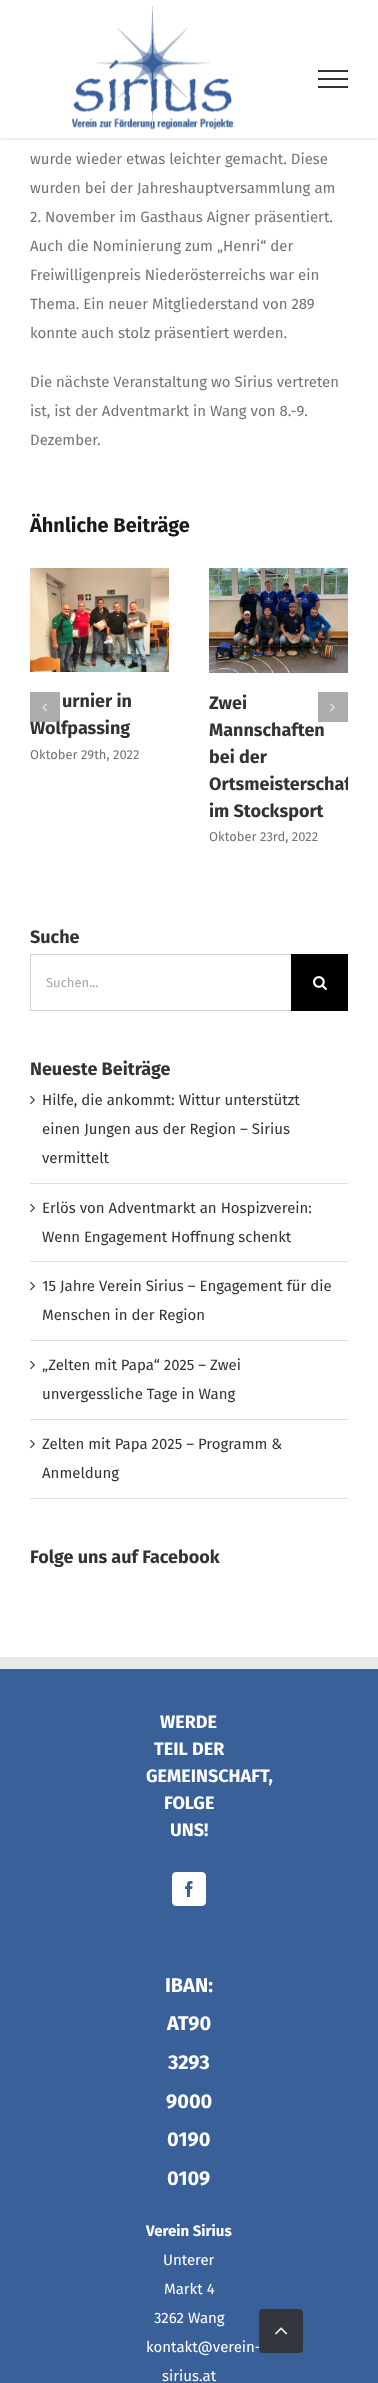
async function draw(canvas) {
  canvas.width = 378;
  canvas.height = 2383;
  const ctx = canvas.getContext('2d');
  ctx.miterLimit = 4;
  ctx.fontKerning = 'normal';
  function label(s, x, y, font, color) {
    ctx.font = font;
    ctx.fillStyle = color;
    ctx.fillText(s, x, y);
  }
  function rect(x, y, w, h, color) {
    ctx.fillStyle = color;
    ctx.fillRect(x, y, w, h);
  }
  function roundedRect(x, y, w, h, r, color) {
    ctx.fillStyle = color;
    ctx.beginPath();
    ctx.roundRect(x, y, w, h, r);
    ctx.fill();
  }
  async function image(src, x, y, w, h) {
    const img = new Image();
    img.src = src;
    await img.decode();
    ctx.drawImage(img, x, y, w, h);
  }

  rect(0, 0, 378, 2383, '#fff');
  ctx.fillStyle = '#0000001f';
  ctx.filter = 'blur(1.5px)';
  ctx.beginPath();
  ctx.rect(0, 1, 378, 138);
  ctx.fill();
  ctx.filter = 'none';
  rect(0, 0, 378, 138, '#fff');
  await image('assets/img1.png', 71, 5, 163, 125);
  rect(318, 70, 30, 2, '#333');
  rect(318, 78, 30, 2, '#333');
  rect(318, 86, 30, 2, '#333');
  label('wurde wieder etwas leichter gemacht. Diese', 30, 164, '15px Fira Sans', '#747474');
  label('wurden bei der Jahreshauptversammlung am', 30, 193, '15px Fira Sans', '#747474');
  label('2. November im Gasthaus Aigner präsentiert.', 30, 222, '15px Fira Sans', '#747474');
  label('Auch die Nominierung zum „Henri“ der', 30, 251, '15px Fira Sans', '#747474');
  label('Freiwilligenpreis Niederösterreichs war ein', 30, 280, '15px Fira Sans', '#747474');
  label('Thema. Ein neuer Mitgliederstand von 289', 30, 309, '15px Fira Sans', '#747474');
  label('konnte auch stolz präsentiert werden.', 30, 338, '15px Fira Sans', '#747474');
  label('Die nächste Veranstaltung wo Sirius vertreten', 30, 387, '15px Fira Sans', '#747474');
  label('ist, ist der Adventmarkt in Wang von 8.-9.', 30, 416, '15px Fira Sans', '#747474');
  label('Dezember.', 30, 445, '15px Fira Sans', '#747474');
  label('Ähnliche Beiträge', 30, 532, 'bold 20px Fira Sans', '#191919');
  await image('assets/img2.png', 30, 568, 139, 104);
  label('urnier in', 62, 707, 'bold 18px Fira Sans', '#333');
  label('Wolfpassing', 30, 734, 'bold 18px Fira Sans', '#333');
  label('Oktober 29th, 2022', 30, 759, '13px Fira Sans', '#747474');
  await image('assets/img3.png', 209, 568, 139, 105);
  label('Zwei', 209, 709, 'bold 18px Fira Sans', '#333');
  label('Mannschaften', 209, 736, 'bold 18px Fira Sans', '#333');
  label('bei der', 209, 763, 'bold 18px Fira Sans', '#333');
  ctx.save();
  ctx.beginPath();
  ctx.rect(30, 560, 318, 295);
  ctx.clip();
  label('Ortsmeisterschaf', 209, 790, 'bold 18px Fira Sans', '#333');
  ctx.restore();
  label('im Stocksport', 209, 817, 'bold 18px Fira Sans', '#333');
  label('Oktober 23rd, 2022', 209, 841, '13px Fira Sans', '#747474');
  rect(30, 692, 30, 30, '#999999cc');
  await image('assets/img4.png', 42, 703, 5, 9);
  rect(318, 692, 30, 30, '#adadad');
  await image('assets/img5.png', 330, 703, 5, 9);
  label('Suche', 30, 943, 'bold 18px Fira Sans', '#333');
  rect(30, 954, 261, 1, '#d2d2d2');
  rect(30, 1010, 261, 1, '#d2d2d2');
  rect(30, 954, 1, 57, '#d2d2d2');
  label('Suchen...', 46, 987, '13px Fira Sans', '#aaa9a9');
  rect(291, 954, 57, 57, '#000');
  await image('assets/img6.png', 313, 976, 14, 14);
  label('Neueste Beiträge', 30, 1075, 'bold 18px Fira Sans', '#333');
  rect(30, 1183, 318, 1, '#e0dede');
  await image('assets/img7.png', 30, 1095, 5, 10);
  label('Hilfe, die ankommt: Wittur unterstützt', 42, 1105, '15px Fira Sans', '#333');
  label('einen Jungen aus der Region – Sirius', 42, 1134, '15px Fira Sans', '#333');
  label('vermittelt', 42, 1163, '15px Fira Sans', '#333');
  rect(30, 1261, 318, 1, '#e0dede');
  await image('assets/img7.png', 30, 1203, 5, 10);
  label('Erlös von Adventmarkt an Hospizverein:', 42, 1213, '15px Fira Sans', '#333');
  label('Wenn Engagement Hoffnung schenkt', 42, 1242, '15px Fira Sans', '#333');
  rect(30, 1340, 318, 1, '#e0dede');
  await image('assets/img7.png', 30, 1281, 5, 10);
  label('15 Jahre Verein Sirius – Engagement für die', 42, 1291, '15px Fira Sans', '#333');
  label('Menschen in der Region', 42, 1320, '15px Fira Sans', '#333');
  rect(30, 1419, 318, 1, '#e0dede');
  await image('assets/img7.png', 30, 1360, 5, 10);
  label('„Zelten mit Papa“ 2025 – Zwei', 42, 1370, '15px Fira Sans', '#333');
  label('unvergessliche Tage in Wang', 42, 1399, '15px Fira Sans', '#333');
  rect(30, 1498, 318, 1, '#e0dede');
  await image('assets/img7.png', 30, 1439, 5, 10);
  label('Zelten mit Papa 2025 – Programm &', 42, 1449, '15px Fira Sans', '#333');
  label('Anmeldung', 42, 1478, '15px Fira Sans', '#333');
  label('Folge uns auf Facebook', 30, 1563, 'bold 18px Fira Sans', '#333');
  rect(0, 1669, 378, 714, '#396099');
  rect(0, 1657, 378, 12, '#e9eaee');
  label('WERDE', 160, 1728, 'bold 18px Fira Sans', '#fff');
  label('TEIL DER', 154, 1755, 'bold 18px Fira Sans', '#fff');
  label('GEMEINSCHAFT,', 146, 1782, 'bold 18px Fira Sans', '#fff');
  label('FOLGE', 164, 1809, 'bold 18px Fira Sans', '#fff');
  label('UNS!', 170, 1836, 'bold 18px Fira Sans', '#fff');
  ctx.beginPath();
  ctx.roundRect(172.5, 1872.5, 33, 33, 3.5);
  ctx.fill();
  ctx.strokeStyle = '#fff';
  ctx.stroke();
  await image('assets/img8.png', 185, 1881, 8, 16);
  label('IBAN:', 165, 1992, 'bold 20px Fira Sans', '#fff');
  label('AT90', 167, 2030, 'bold 20px Fira Sans', '#fff');
  label('3293', 168, 2069, 'bold 20px Fira Sans', '#fff');
  label('9000', 166, 2108, 'bold 20px Fira Sans', '#fff');
  label('0190', 167, 2146, 'bold 20px Fira Sans', '#fff');
  label('0109', 167, 2185, 'bold 20px Fira Sans', '#fff');
  label('Verein Sirius', 146, 2236, 'bold 15px Fira Sans', '#fff');
  label('Unterer', 163, 2265, '15px Fira Sans', '#fff');
  label('Markt 4', 164, 2294, '15px Fira Sans', '#fff');
  label('3262 Wang', 154, 2323, '15px Fira Sans', '#fff');
  label('kontakt@verein-', 146, 2352, '15px Fira Sans', '#fff');
  label('sirius.at', 162, 2381, '15px Fira Sans', '#fff');
  roundedRect(259, 2309, 44, 44, 4, '#333333e6');
  await image('assets/img9.png', 275, 2327, 13, 8);
}

draw(document.querySelector('canvas'));
